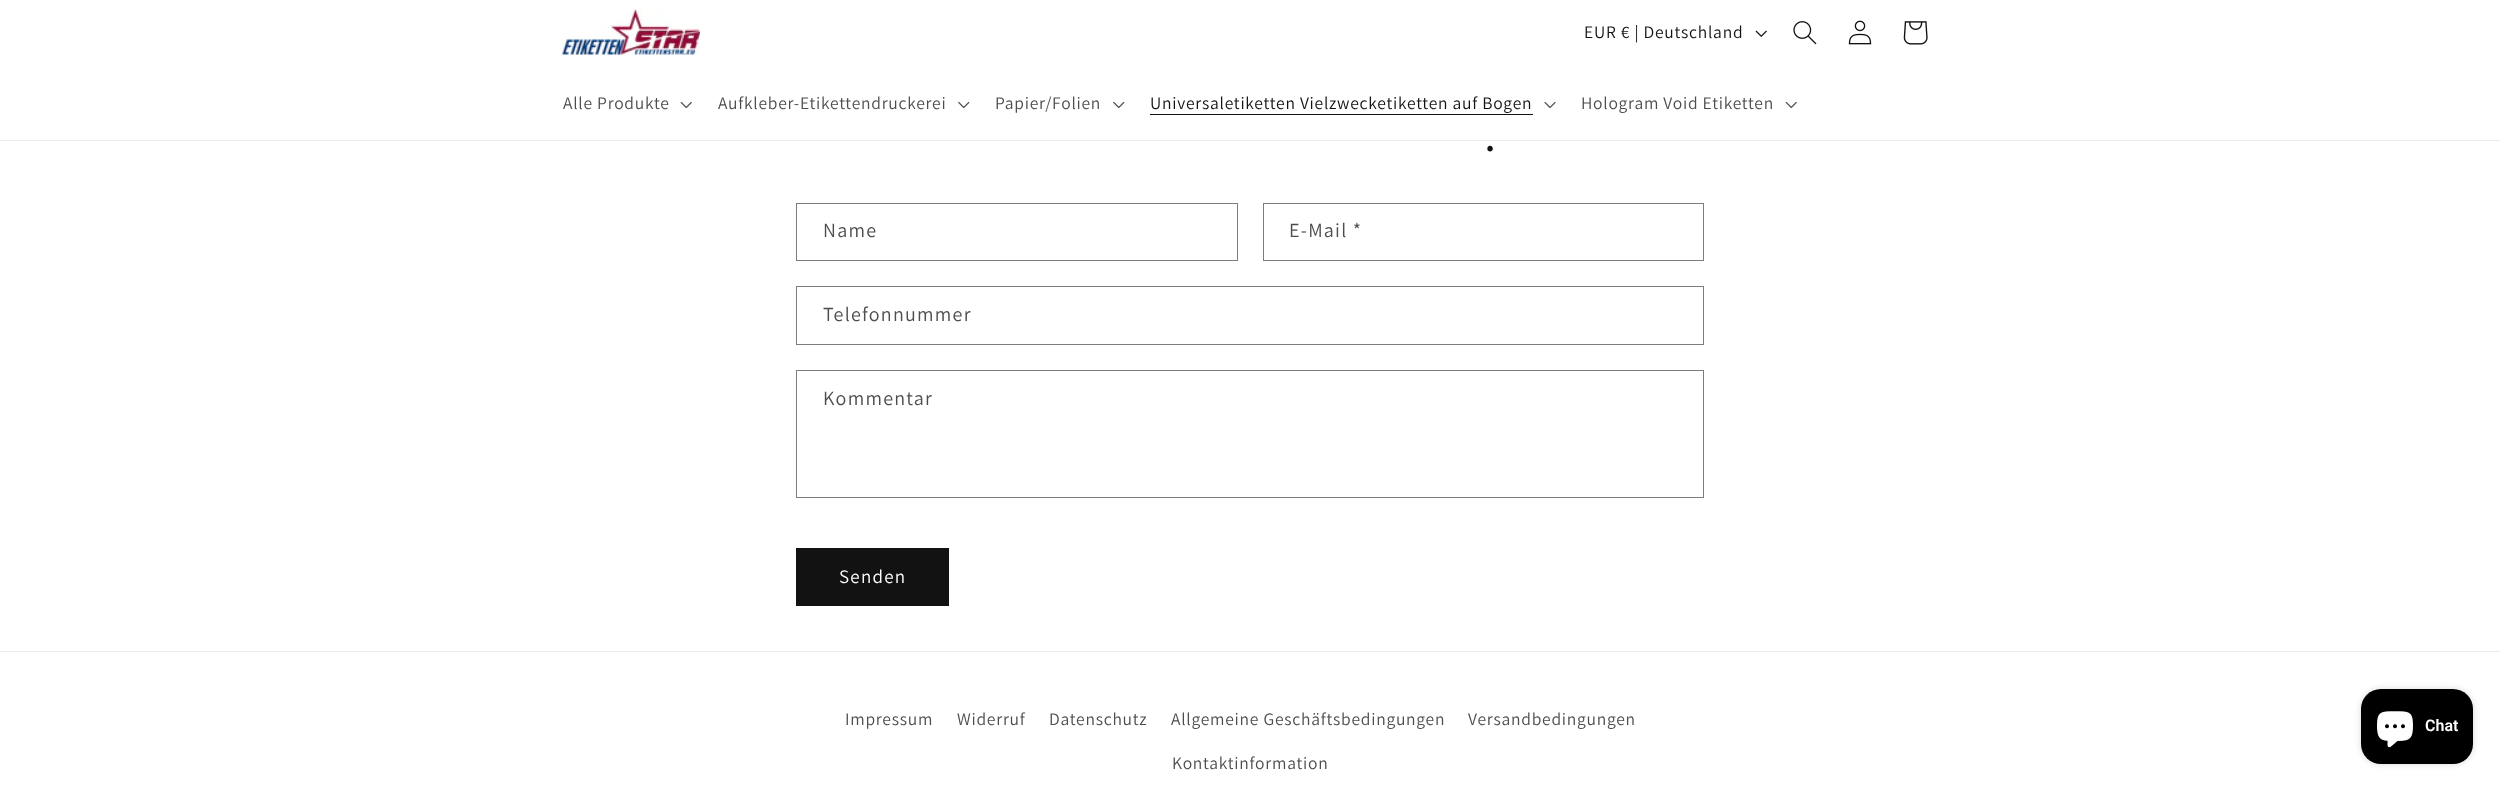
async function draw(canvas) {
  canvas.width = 2500;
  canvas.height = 790;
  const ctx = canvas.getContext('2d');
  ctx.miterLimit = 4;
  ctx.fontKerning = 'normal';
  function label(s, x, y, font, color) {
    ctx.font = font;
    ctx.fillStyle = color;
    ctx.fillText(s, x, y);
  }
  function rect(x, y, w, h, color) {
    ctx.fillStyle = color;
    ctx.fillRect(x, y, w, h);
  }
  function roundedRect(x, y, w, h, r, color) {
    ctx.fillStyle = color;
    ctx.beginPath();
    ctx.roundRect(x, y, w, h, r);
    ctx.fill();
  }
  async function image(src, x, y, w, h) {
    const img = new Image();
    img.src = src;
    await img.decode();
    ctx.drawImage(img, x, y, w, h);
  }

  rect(0, 0, 2500, 790, '#fff');
  rect(0, 140, 2500, 1, '#ececec');
  await image('assets/img1.png', 562, 9, 138, 46);
  ctx.letterSpacing = '0.75px';
  label('EUR € | Deutschland', 1584, 38, '17.5px Assistant', '#121212');
  await image('assets/img2.png', 1755, 30, 12, 7);
  await image('assets/img3.png', 1793, 21, 24, 24);
  await image('assets/img4.png', 1848, 20, 24, 25);
  await image('assets/img5.png', 1903, 21, 25, 24);
  label('Alle Produkte', 563, 109, '17.5px Assistant', '#4d4d4d');
  await image('assets/img6.png', 680, 101, 12, 8);
  label('Aufkleber-Etikettendruckerei', 718, 109, '17.5px Assistant', '#4d4d4d');
  await image('assets/img7.png', 958, 101, 12, 8);
  label('Papier/Folien', 995, 109, '17.5px Assistant', '#4d4d4d');
  await image('assets/img7.png', 1113, 101, 12, 8);
  label('Universaletiketten Vielzwecketiketten auf Bogen', 1150, 109, '17.5px Assistant', '#121212');
  rect(1150, 114, 383, 1, '#121212');
  await image('assets/img8.png', 1544, 102, 12, 6);
  label('Hologram Void Etiketten', 1581, 109, '17.5px Assistant', '#4d4d4d');
  await image('assets/img6.png', 1785, 101, 12, 8);
  label('.', 1484, 151, '50px Assistant', '#121212');
  ctx.strokeStyle = '#7d7d7d';
  ctx.strokeRect(796.5, 203.5, 441, 57);
  ctx.letterSpacing = '1.25px';
  label('Name', 823, 237, '20px Assistant', '#4d4d4d');
  ctx.strokeRect(1263.5, 203.5, 440, 57);
  label('E-Mail *', 1289, 237, '20px Assistant', '#4d4d4d');
  ctx.strokeRect(796.5, 286.5, 907, 58);
  label('Telefonnummer', 823, 321, '20px Assistant', '#4d4d4d');
  ctx.strokeRect(796.5, 370.5, 907, 127);
  label('Kommentar', 823, 405, '20px Assistant', '#4d4d4d');
  rect(796, 548, 153, 58, '#121212');
  label('Senden', 839, 583, '19px Assistant', '#fff');
  rect(0, 651, 2500, 1, '#ececec');
  ctx.letterSpacing = '0.75px';
  label('Impressum', 845, 725, '17.5px Assistant', '#4d4d4d');
  label('Widerruf', 957, 725, '17.5px Assistant', '#4d4d4d');
  label('Datenschutz', 1049, 725, '17.5px Assistant', '#4d4d4d');
  label('Allgemeine Geschäftsbedingungen', 1171, 725, '17.5px Assistant', '#4d4d4d');
  label('Versandbedingungen', 1468, 725, '17.5px Assistant', '#4d4d4d');
  label('Kontaktinformation', 1172, 769, '17.5px Assistant', '#4d4d4d');
  ctx.fillStyle = '#00000026';
  ctx.filter = 'blur(3px)';
  ctx.beginPath();
  ctx.roundRect(2361, 689, 112, 75, 20);
  ctx.fill();
  ctx.filter = 'none';
  roundedRect(2361, 689, 112, 75, 20, '#000');
  await image('assets/img9.png', 2377, 711, 36, 37);
  ctx.letterSpacing = '0px';
  label('Chat', 2425, 731, '600 16px Roboto', '#fff');
}

draw(document.querySelector('canvas'));
